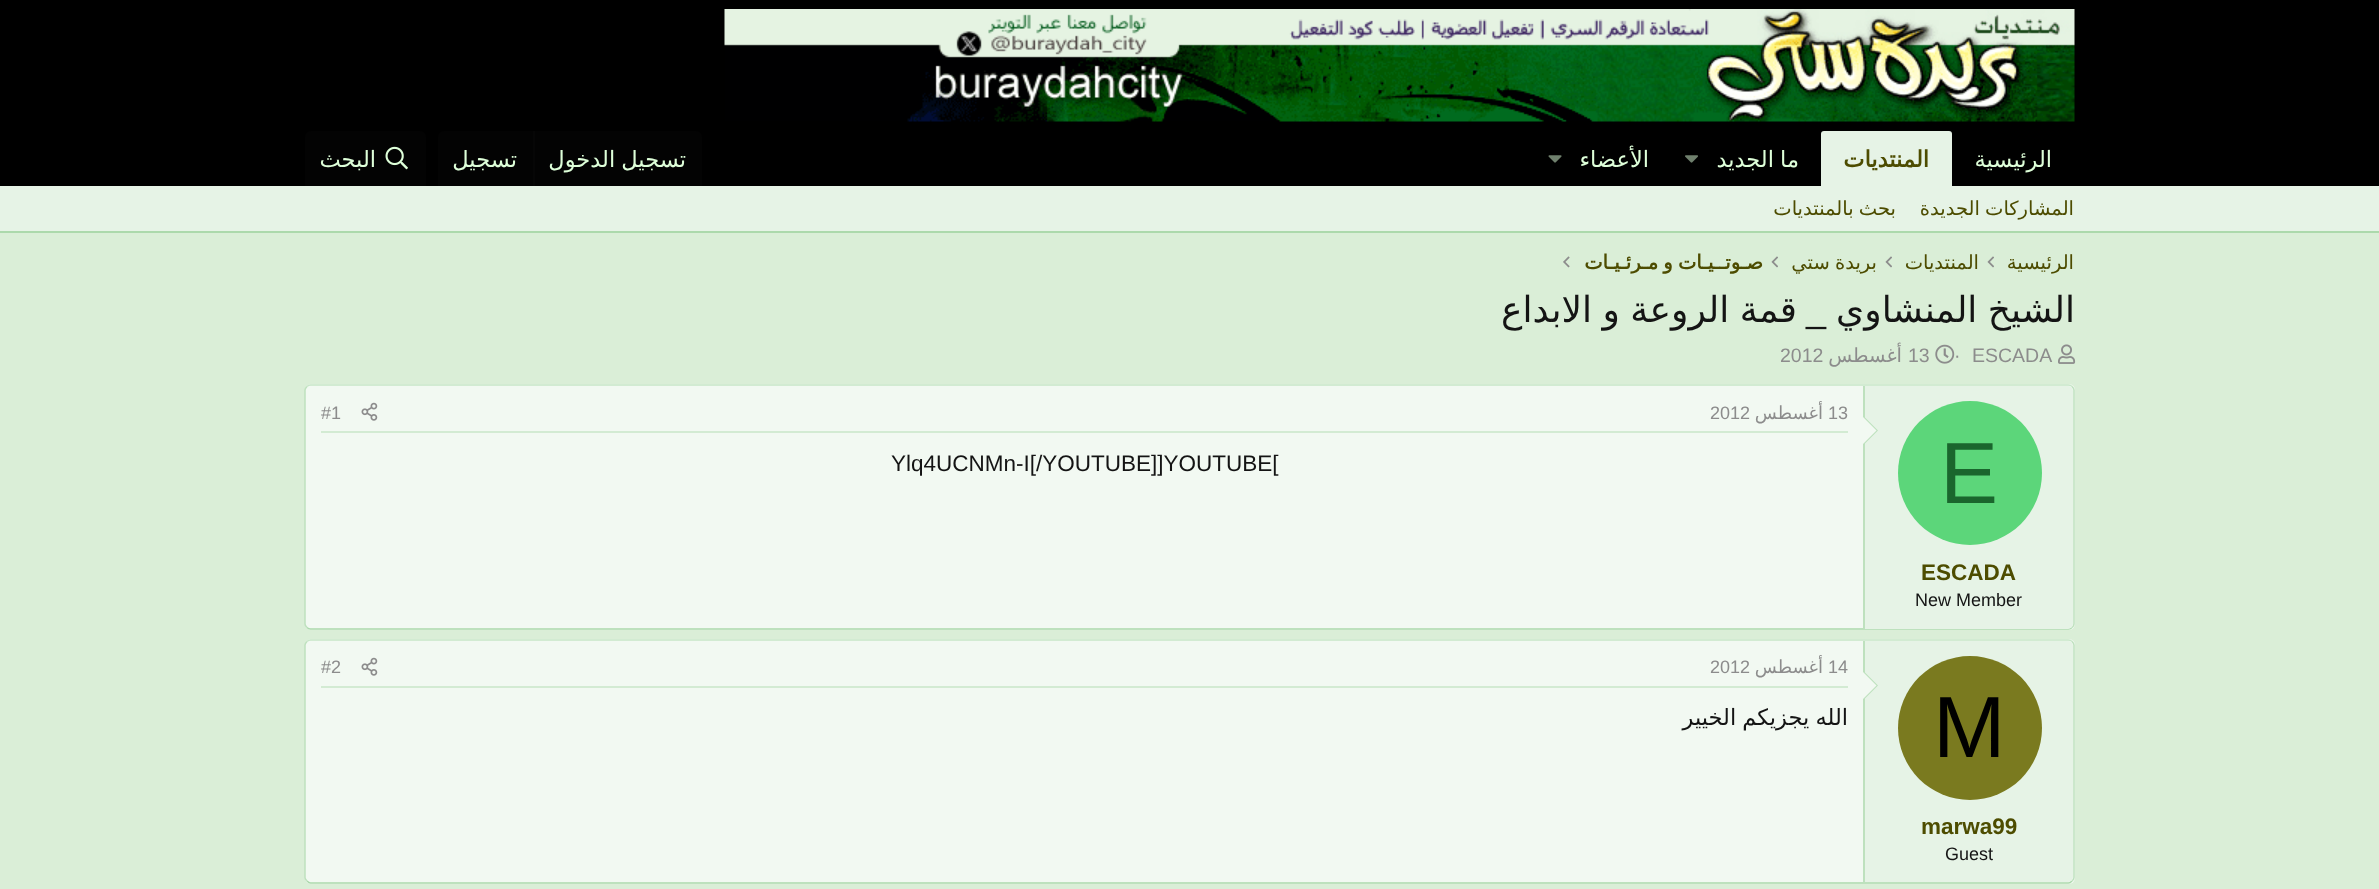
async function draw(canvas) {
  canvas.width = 2379;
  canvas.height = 889;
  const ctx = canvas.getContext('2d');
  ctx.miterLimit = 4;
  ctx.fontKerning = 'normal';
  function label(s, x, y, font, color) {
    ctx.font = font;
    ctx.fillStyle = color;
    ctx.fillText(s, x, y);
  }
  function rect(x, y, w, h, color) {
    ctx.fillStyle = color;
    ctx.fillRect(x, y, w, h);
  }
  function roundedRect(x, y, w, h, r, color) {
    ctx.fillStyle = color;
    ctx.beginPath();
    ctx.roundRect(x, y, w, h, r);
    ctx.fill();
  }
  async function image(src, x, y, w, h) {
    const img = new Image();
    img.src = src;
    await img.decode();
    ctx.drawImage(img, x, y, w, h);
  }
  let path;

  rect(0, 0, 2379, 889, '#daeed7');
  rect(0, 0, 2379, 186, '#000');
  await image('assets/img1.png', 724, 9, 1351, 113);
  ctx.direction = 'rtl';
  label('الرئيسية', 2052, 167, '22.5px DejaVu Sans', '#deffd9');
  ctx.fillStyle = '#e6f3e6';
  ctx.beginPath();
  ctx.roundRect(1821, 131, 131, 55, [3, 3, 0, 0]);
  ctx.fill();
  label('المنتديات', 1929, 167, 'bold 22.5px DejaVu Sans', '#4d4c00');
  ctx.wordSpacing = '-1px';
  label('ما الجديد', 1799, 167, '22.5px DejaVu Sans', '#deffd9');
  await image('assets/img2.png', 1685, 155, 13, 8);
  ctx.wordSpacing = '0px';
  label('الأعضاء', 1649, 167, '22.5px DejaVu Sans', '#deffd9');
  await image('assets/img3.png', 1548, 155, 14, 8);
  ctx.fillStyle = '#030303';
  ctx.beginPath();
  ctx.roundRect(438, 131, 264, 55, [6, 6, 0, 0]);
  ctx.fill();
  ctx.wordSpacing = '-1px';
  label('تسجيل الدخول', 686, 167, '22.5px DejaVu Sans', '#deffd9');
  rect(533, 131, 2, 55, '#060606');
  ctx.wordSpacing = '0px';
  label('تسجيل', 517, 167, '22.5px DejaVu Sans', '#deffd9');
  ctx.fillStyle = '#030303';
  ctx.beginPath();
  ctx.roundRect(305, 131, 121, 55, [6, 6, 0, 0]);
  ctx.fill();
  await image('assets/img4.png', 385, 146, 23, 24);
  label('البحث', 376, 167, '22.5px DejaVu Sans', '#deffd9');
  rect(0, 186, 2379, 45, '#e6f3e6');
  rect(0, 231, 2379, 2, '#acd9ac');
  ctx.wordSpacing = '-1px';
  label('المشاركات الجديدة', 2074, 215, '19.5px DejaVu Sans', '#4d4c00');
  label('بحث بالمنتديات', 1896, 215, '19.5px DejaVu Sans', '#4d4c00');
  ctx.wordSpacing = '0px';
  label('الرئيسية', 2074, 269, '19.5px DejaVu Sans', '#4d4c00');
  await image('assets/img5.png', 1987, 256, 7, 12);
  label('المنتديات', 1979, 269, '19.5px DejaVu Sans', '#4d4c00');
  await image('assets/img5.png', 1885, 256, 7, 12);
  ctx.wordSpacing = '-1px';
  label('بريدة ستي', 1877, 269, '19.5px DejaVu Sans', '#4d4c00');
  await image('assets/img5.png', 1771, 256, 7, 12);
  label('صـوتــيـات و مـرئـيـات', 1763, 269, 'bold 19.5px DejaVu Sans', '#4d4c00');
  await image('assets/img6.png', 1563, 256, 7, 12);
  label('الشيخ المنشاوي', 2075, 322, '36px DejaVu Sans', '#141414');
  ctx.wordSpacing = '0px';
  label('_', 1826, 322, '36px Liberation Sans', '#141414');
  ctx.wordSpacing = '-1px';
  label('قمة الروعة و الابداع', 1797, 322, '36px DejaVu Sans', '#141414');
  await image('assets/img7.png', 2058, 344, 18, 20);
  ctx.wordSpacing = '0px';
  ctx.direction = 'ltr';
  label('ESCADA', 1972, 362, '19.5px Liberation Sans', '#8c8c8c');
  label('·', 1954, 362, '19.5px Liberation Sans', '#8c8c8c');
  await image('assets/img8.png', 1935, 344, 20, 20);
  label('13', 1908, 362, '19.5px Liberation Sans', '#8c8c8c');
  ctx.direction = 'rtl';
  label('أغسطس', 1902, 362, '19.5px DejaVu Sans', '#8c8c8c');
  ctx.direction = 'ltr';
  label('2012', 1780, 362, '19.5px Liberation Sans', '#8c8c8c');
  roundedRect(305, 384, 1770, 246, 6, '#f2f9f2');
  path = new Path2D('M307 386.5C308 385.5 309 385 310.5 385H2068.5C2070 385 2071 385.5 2072 386.5');
  ctx.strokeStyle = '#c8e6c8';
  ctx.lineWidth = 1.5;
  ctx.stroke(path);
  path = new Path2D('M2072 386.5C2073 387.5 2074 388.5 2074 390V624C2074 625.5 2073 626.5 2072 627.5');
  ctx.strokeStyle = '#bee1be';
  ctx.stroke(path);
  path = new Path2D('M2072 627.5C2071 628.5 2070 629 2068.5 629H310.5C309 629 308 628.5 307 627.5');
  ctx.strokeStyle = '#acd9ac';
  ctx.stroke(path);
  path = new Path2D('M307 627.5C306 626.5 305 625.5 305 624V390C305 388.5 306 387.5 307 386.5');
  ctx.strokeStyle = '#bee1be';
  ctx.stroke(path);
  ctx.fillStyle = '#e6f3e6';
  ctx.beginPath();
  ctx.roundRect(1863, 386, 210, 243, [0, 5, 5, 0]);
  ctx.fill();
  rect(1863, 386, 2, 243, '#bee1be');
  path = new Path2D('M1863 445.5V415.5L1878 430.5Z');
  ctx.fill(path);
  ctx.fillStyle = '#f2f9f2';
  path = new Path2D('M1863 444V417L1876.5 430.5Z');
  ctx.fill(path);
  ctx.fillStyle = '#5cd67a';
  ctx.beginPath();
  ctx.arc(1970, 473, 72, 0, 2 * Math.PI);
  ctx.fill();
  label('E', 1940, 503, '87px Liberation Sans', '#1a662d');
  label('ESCADA', 1921, 580, 'bold 22.5px Liberation Sans', '#4d4c00');
  label('New Member', 1915, 606, '18px Liberation Sans', '#141414');
  rect(321, 431, 1527, 2, '#d3ebd3');
  label('13', 1828, 419, '18px Liberation Sans', '#8c8c8c');
  ctx.direction = 'rtl';
  label('أغسطس', 1823, 419, '18px DejaVu Sans', '#8c8c8c');
  ctx.direction = 'ltr';
  label('2012', 1710, 419, '18px Liberation Sans', '#8c8c8c');
  await image('assets/img9.png', 361, 402, 17, 19);
  label('#1', 321, 419, '18px Liberation Sans', '#8c8c8c');
  label('Ylq4UCNMn-I[/YOUTUBE]]YOUTUBE[', 891, 471, '22.5px Liberation Sans', '#141414');
  roundedRect(305, 639, 1770, 245, 6, '#f2f9f2');
  path = new Path2D('M307 641.5C308 640.5 309 640 310.5 640H2068.5C2070 640 2071 640.5 2072 641.5');
  ctx.strokeStyle = '#c8e6c8';
  ctx.stroke(path);
  path = new Path2D('M2072 641.5C2073 642.5 2074 643.5 2074 645V877.5C2074 879 2073 880 2072 881');
  ctx.strokeStyle = '#bee1be';
  ctx.stroke(path);
  path = new Path2D('M2072 881C2071 882 2070 883 2068.5 883H310.5C309 883 308 882 307 881');
  ctx.strokeStyle = '#acd9ac';
  ctx.stroke(path);
  path = new Path2D('M307 881C306 880 305 879 305 877.5V645C305 643.5 306 642.5 307 641.5');
  ctx.strokeStyle = '#bee1be';
  ctx.stroke(path);
  ctx.fillStyle = '#e6f3e6';
  ctx.beginPath();
  ctx.roundRect(1863, 641, 210, 241, [0, 5, 5, 0]);
  ctx.fill();
  rect(1863, 641, 2, 241, '#bee1be');
  path = new Path2D('M1863 700.5V670.5L1878 685.5Z');
  ctx.fill(path);
  ctx.fillStyle = '#f2f9f2';
  path = new Path2D('M1863 699V672L1876.5 685.5Z');
  ctx.fill(path);
  ctx.fillStyle = '#7a7a1f';
  ctx.beginPath();
  ctx.arc(1970, 728, 72, 0, 2 * Math.PI);
  ctx.fill();
  label('M', 1933, 757, '87px Liberation Sans', '#000');
  label('marwa99', 1921, 834, 'bold 22.5px Liberation Sans', '#4d4c00');
  label('Guest', 1945, 860, '18px Liberation Sans', '#141414');
  rect(321, 686, 1527, 2, '#d3ebd3');
  label('14', 1828, 673, '18px Liberation Sans', '#8c8c8c');
  ctx.direction = 'rtl';
  label('أغسطس', 1823, 673, '18px DejaVu Sans', '#8c8c8c');
  ctx.direction = 'ltr';
  label('2012', 1710, 673, '18px Liberation Sans', '#8c8c8c');
  await image('assets/img9.png', 361, 657, 17, 19);
  label('#2', 321, 673, '18px Liberation Sans', '#8c8c8c');
  ctx.wordSpacing = '-1px';
  ctx.direction = 'rtl';
  label('الله يجزيكم الخيير', 1848, 725, '22.5px DejaVu Sans', '#141414');
}

draw(document.querySelector('canvas'));
